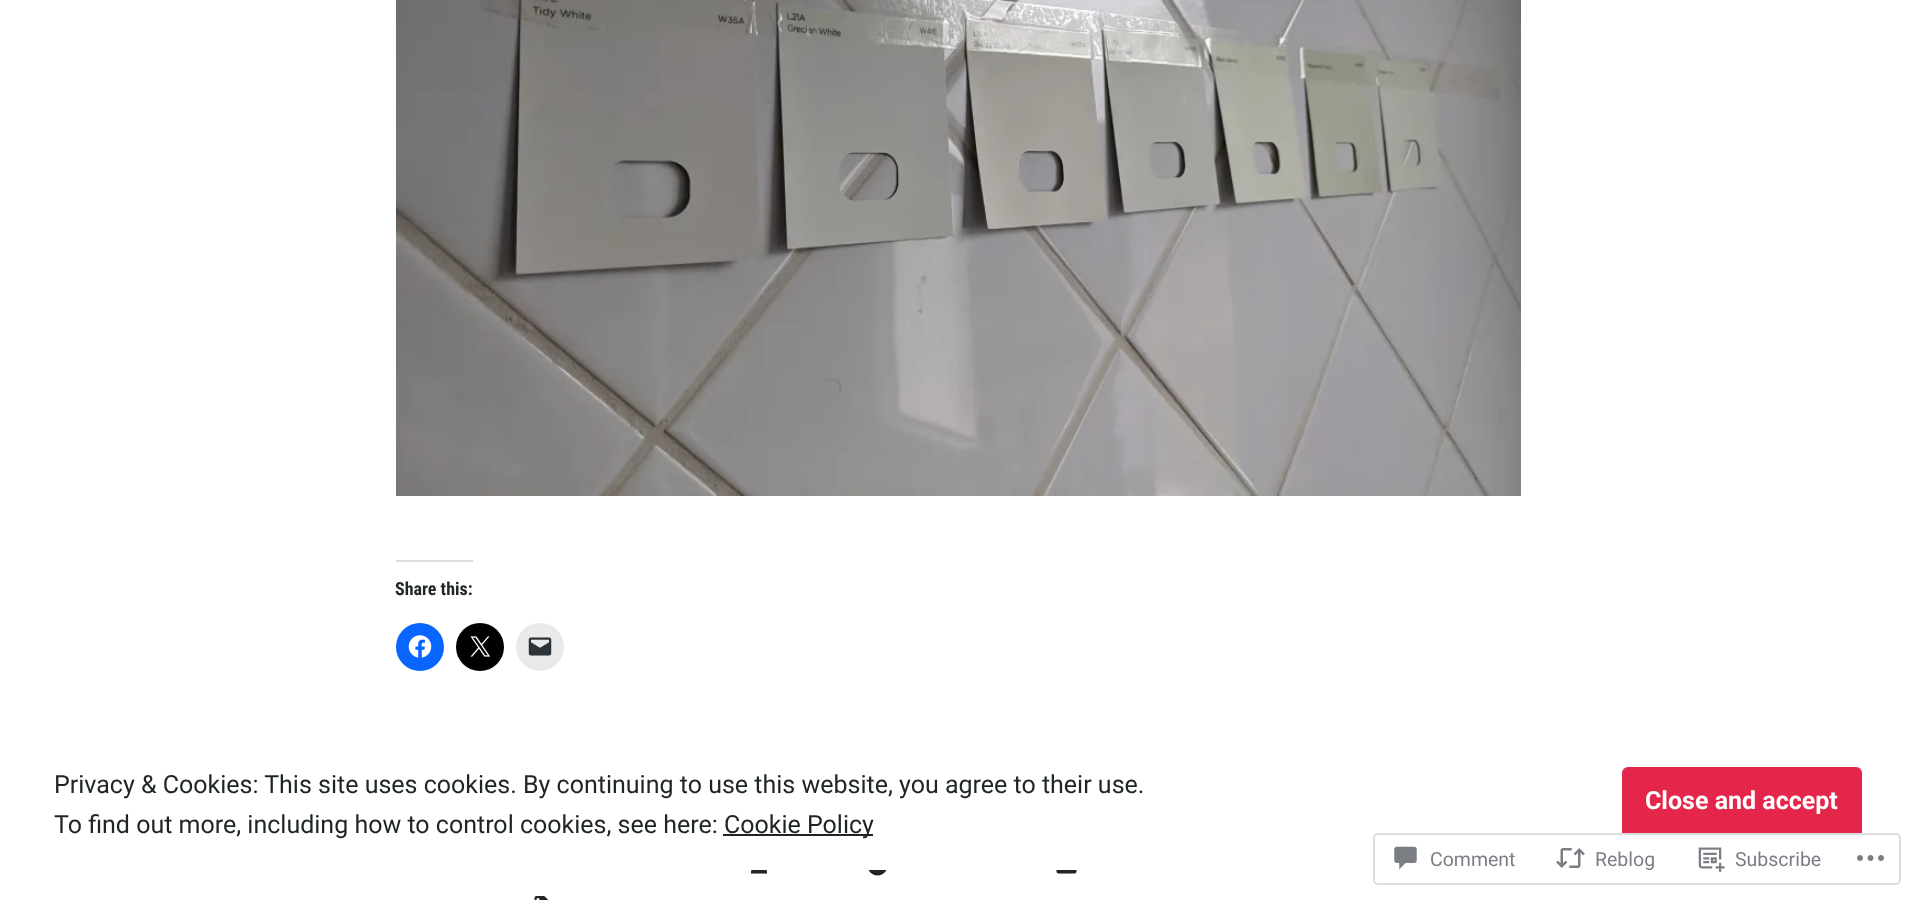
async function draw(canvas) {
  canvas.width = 1915;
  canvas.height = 900;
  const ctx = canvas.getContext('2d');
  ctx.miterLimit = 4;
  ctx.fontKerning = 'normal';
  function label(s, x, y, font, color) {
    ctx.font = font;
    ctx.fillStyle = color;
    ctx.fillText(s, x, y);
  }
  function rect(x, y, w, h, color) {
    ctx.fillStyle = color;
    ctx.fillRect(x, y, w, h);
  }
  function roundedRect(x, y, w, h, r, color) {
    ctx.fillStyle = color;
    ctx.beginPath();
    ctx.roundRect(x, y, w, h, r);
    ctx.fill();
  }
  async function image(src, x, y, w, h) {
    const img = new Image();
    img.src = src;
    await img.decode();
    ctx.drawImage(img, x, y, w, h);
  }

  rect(0, 0, 1915, 900, '#fff');
  await image('assets/img1.png', 396, 0, 1125, 496);
  rect(396, 560, 77, 2, '#dcdcde');
  label('Share this:', 395, 595, 'bold 18px Roboto Condensed', '#1f2527');
  ctx.fillStyle = '#0866ff';
  ctx.beginPath();
  ctx.arc(420, 647, 24, 0, 2 * Math.PI);
  ctx.fill();
  await image('assets/img2.png', 408, 635, 24, 23);
  ctx.fillStyle = '#000';
  ctx.beginPath();
  ctx.arc(480, 647, 24, 0, 2 * Math.PI);
  ctx.fill();
  await image('assets/img3.png', 470, 636, 21, 21);
  ctx.fillStyle = '#e9e9e9';
  ctx.beginPath();
  ctx.arc(540, 647, 24, 0, 2 * Math.PI);
  ctx.fill();
  await image('assets/img4.png', 528, 637, 24, 19);
  await image('assets/img5.png', 751, 870, 16, 4);
  await image('assets/img6.png', 868, 870, 19, 6);
  await image('assets/img7.png', 1056, 870, 21, 4);
  await image('assets/img8.png', 534, 896, 15, 4);
  label('Privacy & Cookies: This site uses cookies. By continuing to use this website, you agree to their use.', 54, 793, '25px Roboto', '#1f2527');
  roundedRect(1622, 767, 240, 72, 6, '#e32649');
  label('Close and accept', 1645, 809, 'bold 25px Roboto', '#fff');
  label('To find out more, including how to control cookies, see here:', 54, 833, '25px Roboto', '#1f2527');
  rect(723, 834, 150, 2, '#1f2527');
  label('Cookie Policy', 724, 833, '25px Roboto', '#1f2527');
  roundedRect(1373, 833, 528, 52, 5, '#fffffffa');
  ctx.beginPath();
  ctx.roundRect(1374, 834, 526, 50, 4);
  ctx.strokeStyle = '#dcdcdefa';
  ctx.lineWidth = 2;
  ctx.stroke();
  await image('assets/img9.png', 1394, 846, 23, 24);
  label('Comment', 1430, 866, '19.5px Roboto', '#7b7f85');
  await image('assets/img10.png', 1556, 848, 29, 20);
  label('Reblog', 1595, 866, '19.5px Roboto', '#7b7f85');
  await image('assets/img11.png', 1698, 847, 27, 25);
  label('Subscribe', 1735, 866, '19.5px Roboto', '#7b7f85');
  await image('assets/img12.png', 1857, 855, 27, 6);
}

draw(document.querySelector('canvas'));
